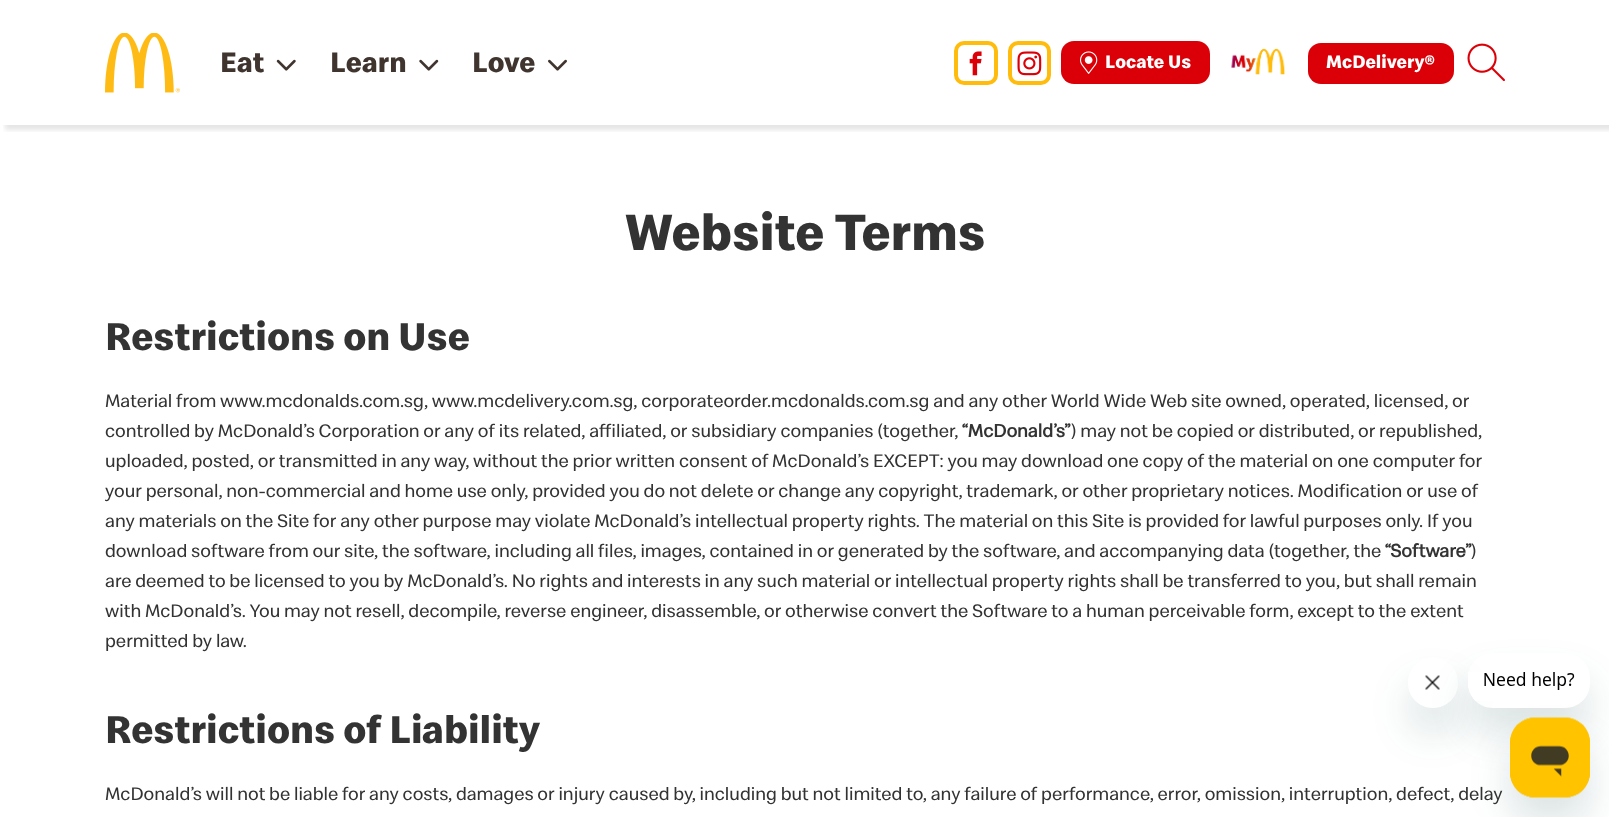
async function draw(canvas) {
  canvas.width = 1609;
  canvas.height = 817;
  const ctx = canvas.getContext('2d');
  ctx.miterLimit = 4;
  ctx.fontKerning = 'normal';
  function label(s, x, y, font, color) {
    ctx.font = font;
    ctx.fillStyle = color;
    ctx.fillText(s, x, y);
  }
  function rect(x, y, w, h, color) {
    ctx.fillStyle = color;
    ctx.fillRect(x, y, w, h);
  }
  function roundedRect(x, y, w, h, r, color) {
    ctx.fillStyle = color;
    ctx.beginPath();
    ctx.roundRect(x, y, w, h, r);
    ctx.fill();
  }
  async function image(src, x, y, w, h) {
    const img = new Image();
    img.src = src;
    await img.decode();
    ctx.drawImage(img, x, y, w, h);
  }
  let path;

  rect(0, 0, 1609, 817, '#fff');
  ctx.save();
  ctx.beginPath();
  ctx.rect(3, 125, 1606, 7);
  ctx.clip();
  ctx.fillStyle = '#0000001a';
  ctx.filter = 'blur(2.5px)';
  ctx.beginPath();
  ctx.rect(5, 5, 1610, 125);
  ctx.fill();
  ctx.filter = 'none';
  ctx.restore();
  await image('assets/img1.png', 105, 33, 75, 60);
  label('Eat', 220, 72, 'bold 29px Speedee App', '#40342f');
  await image('assets/img2.png', 276, 59, 20, 12);
  label('Learn', 330, 72, 'bold 29px Speedee App', '#40342f');
  await image('assets/img3.png', 419, 59, 20, 12);
  label('Love', 472, 72, 'bold 29px Speedee App', '#40342f');
  await image('assets/img4.png', 548, 59, 19, 12);
  ctx.beginPath();
  ctx.roundRect(956, 43, 40, 40, 8);
  ctx.strokeStyle = '#ffbc0d';
  ctx.lineWidth = 4;
  ctx.stroke();
  await image('assets/img5.png', 969, 51, 13, 25);
  ctx.beginPath();
  ctx.roundRect(1010, 43, 39, 40, 8);
  ctx.stroke();
  await image('assets/img6.png', 1017, 51, 25, 25);
  roundedRect(1061, 41, 149, 43, 13, '#db0007');
  await image('assets/img7.png', 1080, 51, 18, 23);
  label('Locate Us', 1105, 68, 'bold 18.75px Speedee App', '#fff');
  await image('assets/img8.png', 1231, 48, 55, 27);
  roundedRect(1308, 43, 146, 41, 13, '#db0007');
  label('McDelivery®', 1326, 68, 'bold 18.75px Speedee App', '#fff');
  await image('assets/img9.png', 1467, 43, 38, 39);
  label('Website Terms', 625, 250, 'bold 52.5px Speedee App', '#333');
  label('Restrictions on Use', 105, 350, 'bold 40px Speedee App', '#333');
  label('Material from www.mcdonalds.com.sg, www.mcdelivery.com.sg, corporateorder.mcdonalds.com.sg and any other World Wide Web site owned, operated, licensed, or', 105, 407, '18.75px Speedee App', '#333');
  label('controlled by McDonald’s Corporation or any of its related, affiliated, or subsidiary companies (together,', 105, 437, '18.75px Speedee App', '#333');
  label('“McDonald’s”', 962, 437, 'bold 18.75px "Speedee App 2"', '#333');
  label(') may not be copied or distributed, or republished,', 1071, 437, '18.75px Speedee App', '#333');
  label('uploaded, posted, or transmitted in any way, without the prior written consent of McDonald’s EXCEPT: you may download one copy of the material on one computer for', 105, 467, '18.75px Speedee App', '#333');
  label('your personal, non-commercial and home use only, provided you do not delete or change any copyright, trademark, or other proprietary notices. Modification or use of', 105, 497, '18.75px Speedee App', '#333');
  label('any materials on the Site for any other purpose may violate McDonald’s intellectual property rights. The material on this Site is provided for lawful purposes only. If you', 105, 527, '18.75px Speedee App', '#333');
  label('download software from our site, the software, including all files, images, contained in or generated by the software, and accompanying data (together, the', 105, 557, '18.75px Speedee App', '#333');
  label('“Software”', 1385, 557, 'bold 18.75px "Speedee App 2"', '#333');
  label(')', 1471, 557, '18.75px Speedee App', '#333');
  label('are deemed to be licensed to you by McDonald’s. No rights and interests in any such material or intellectual property rights shall be transferred to you, but shall remain', 105, 587, '18.75px Speedee App', '#333');
  label('with McDonald’s. You may not resell, decompile, reverse engineer, disassemble, or otherwise convert the Software to a human perceivable form, except to the extent', 105, 617, '18.75px Speedee App', '#333');
  label('permitted by law.', 105, 647, '18.75px Speedee App', '#333');
  label('Restrictions of Liability', 105, 743, 'bold 40px Speedee App', '#333');
  label('McDonald’s will not be liable for any costs, damages or injury caused by, including but not limited to, any failure of performance, error, omission, interruption, defect, delay', 105, 800, '18.75px Speedee App', '#333');
  ctx.save();
  path = new Path2D('M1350 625H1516V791H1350ZM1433 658C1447 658 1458 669 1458 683C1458 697 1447 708 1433 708C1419 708 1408 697 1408 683C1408 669 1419 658 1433 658Z');
  ctx.clip(path, 'evenodd');
  ctx.fillStyle = '#17494d26';
  ctx.filter = 'blur(19px)';
  ctx.beginPath();
  ctx.roundRect(1408, 683, 50, 50, 25);
  ctx.fill();
  ctx.filter = 'none';
  ctx.restore();
  await image('assets/img11.png', 1425, 675, 15, 33);
  ctx.save();
  path = new Path2D('M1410 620H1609V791H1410ZM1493 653H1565C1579 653 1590 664 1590 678V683C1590 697 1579 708 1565 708H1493C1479 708 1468 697 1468 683V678C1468 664 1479 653 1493 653Z');
  ctx.clip(path, 'evenodd');
  ctx.fillStyle = '#17494d26';
  ctx.filter = 'blur(19px)';
  ctx.beginPath();
  ctx.roundRect(1468, 678, 122, 55, 25);
  ctx.fill();
  ctx.filter = 'none';
  ctx.restore();
  await image('assets/img10.png', 1468, 672, 107, 29);
  ctx.fillStyle = '#17494d26';
  ctx.filter = 'blur(19px)';
  ctx.beginPath();
  ctx.roundRect(1510, 743, 80, 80, 25);
  ctx.fill();
  ctx.filter = 'none';
  await image('assets/img12.png', 1510, 717, 80, 81);
}

draw(document.querySelector('canvas'));
